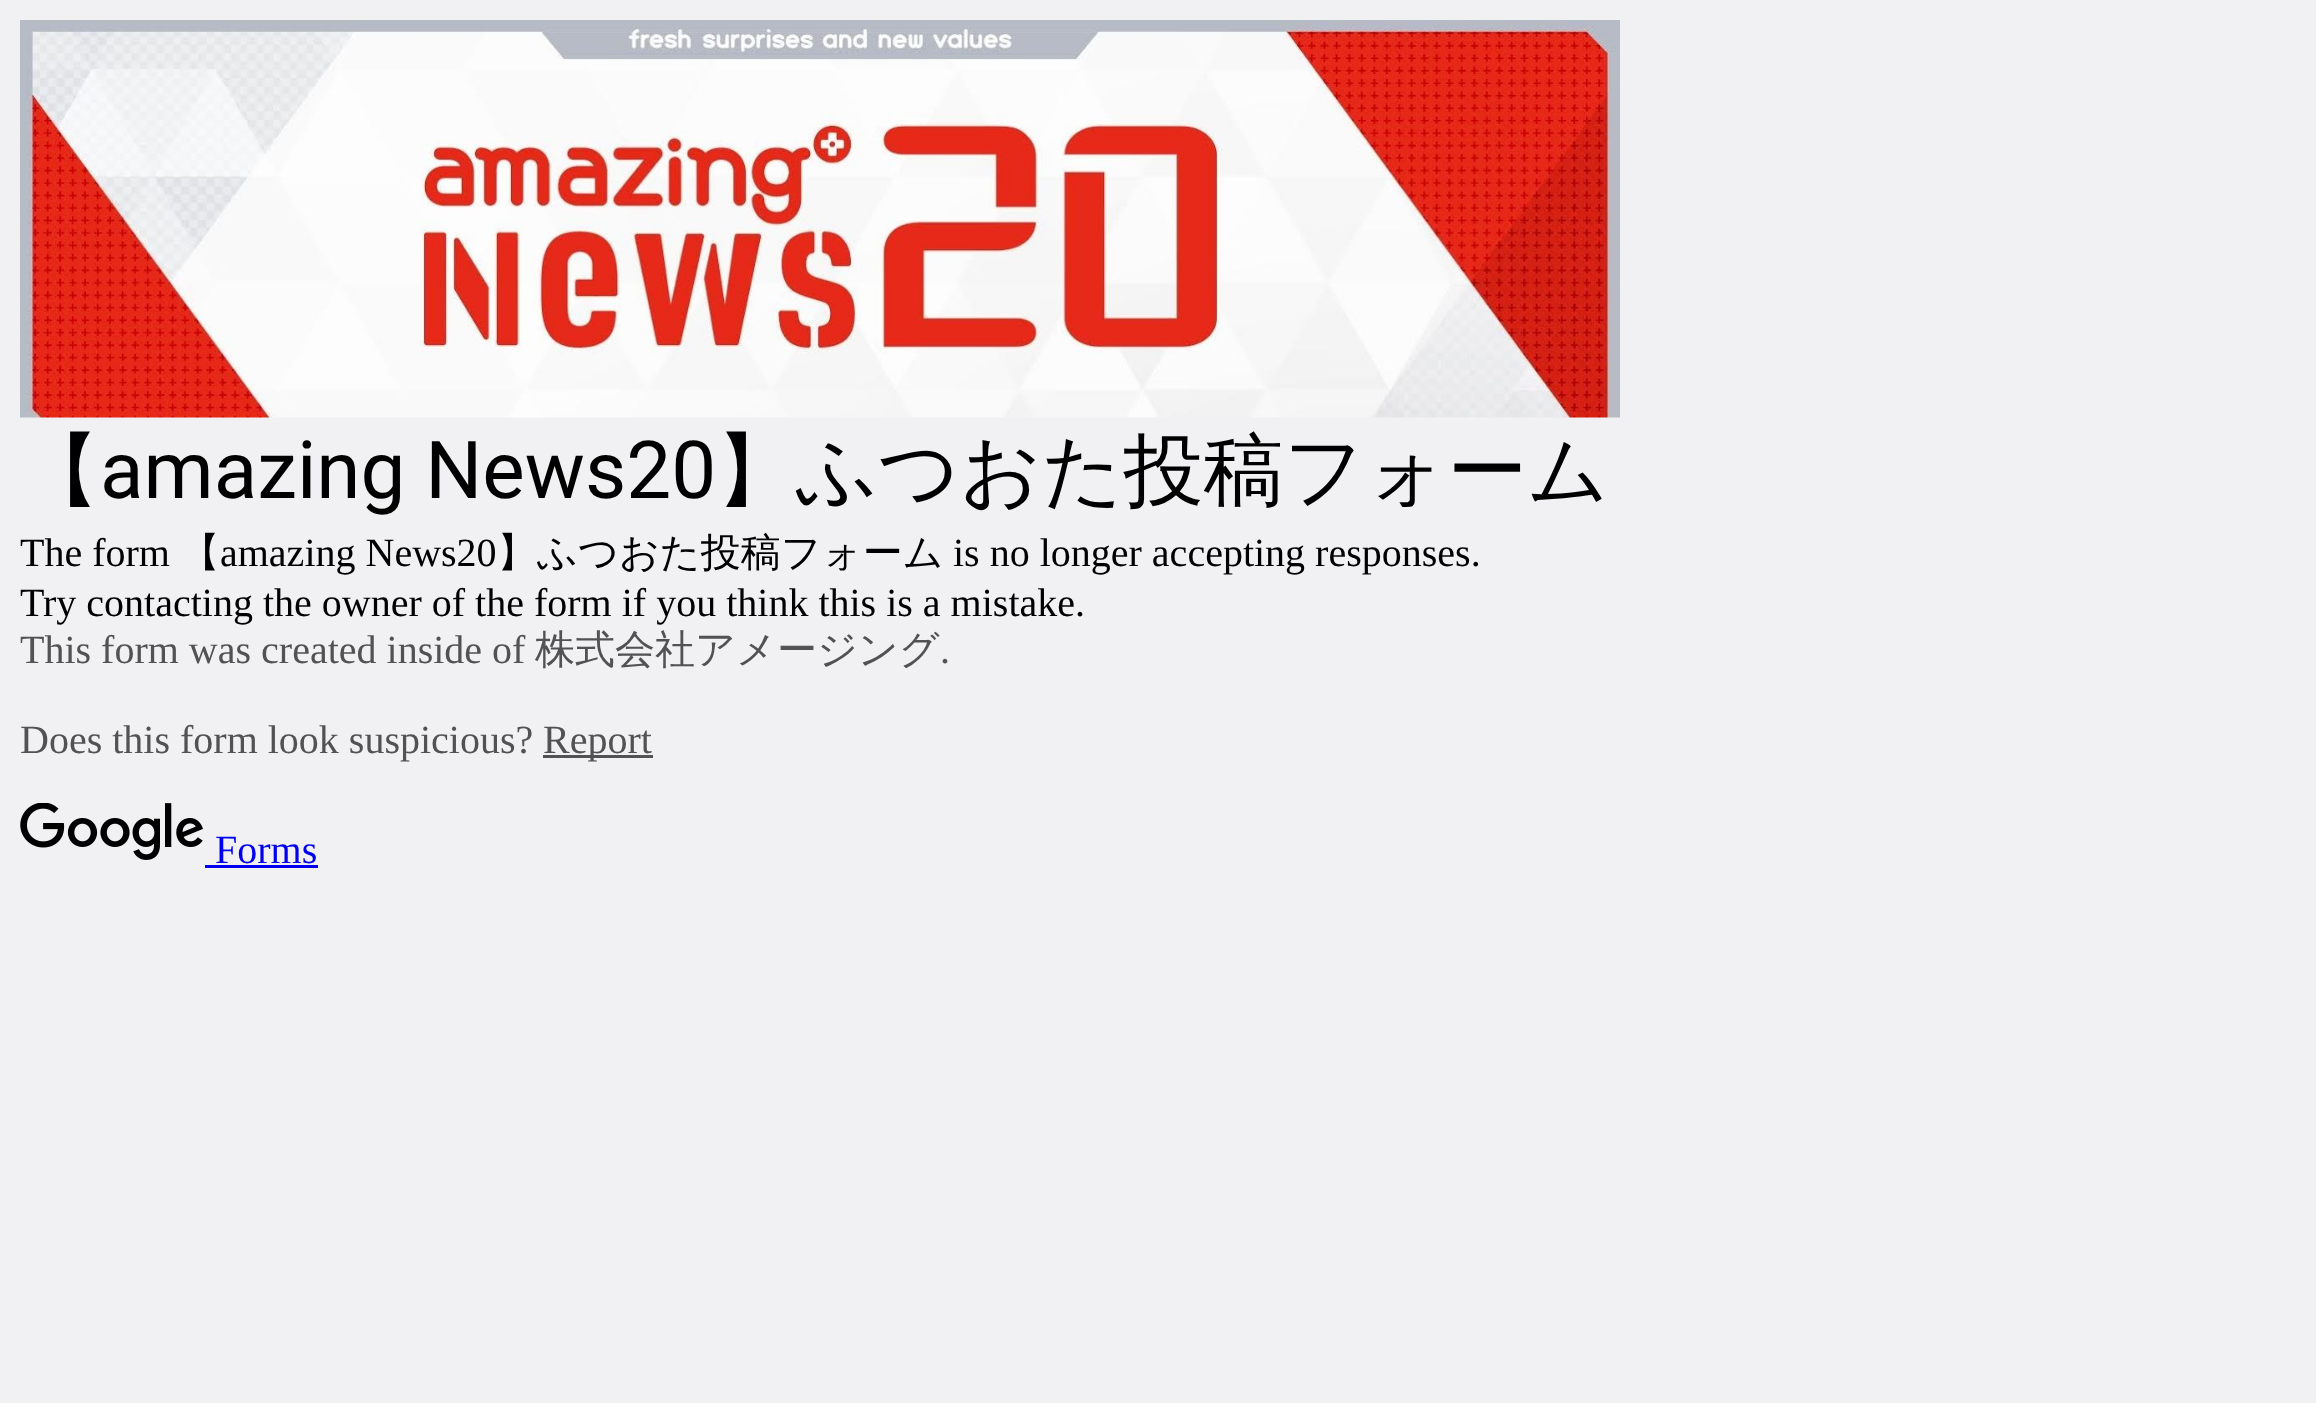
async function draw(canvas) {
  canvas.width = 2316;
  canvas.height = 1403;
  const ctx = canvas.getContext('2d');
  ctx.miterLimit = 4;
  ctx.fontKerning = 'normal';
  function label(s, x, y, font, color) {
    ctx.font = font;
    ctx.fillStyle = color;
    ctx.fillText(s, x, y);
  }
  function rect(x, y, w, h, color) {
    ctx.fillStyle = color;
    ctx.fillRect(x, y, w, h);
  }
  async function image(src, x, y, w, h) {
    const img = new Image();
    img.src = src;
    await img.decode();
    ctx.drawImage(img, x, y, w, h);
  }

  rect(0, 0, 2316, 1403, '#f1f1f3');
  await image('assets/img1.png', 20, 20, 1600, 398);
  label('【', 20, 498, '500 80px WenQuanYi Zen Hei', '#000');
  label('amazing News20', 100, 498, '80px Roboto', '#000');
  label('】ふつおた投稿フォーム', 716, 498, '500 80px WenQuanYi Zen Hei', '#000');
  label('The form', 20, 566, '40px Liberation Serif', '#000');
  label('【', 180, 566, '500 40px WenQuanYi Zen Hei', '#000');
  label('amazing News20', 220, 566, '40px Liberation Serif', '#000');
  label('】ふつおた投稿フォーム', 497, 566, '500 40px WenQuanYi Zen Hei', '#000');
  label('is no longer accepting responses.', 953, 566, '40px Liberation Serif', '#000');
  label('Try contacting the owner of the form if you think this is a mistake.', 20, 616, '40px Liberation Serif', '#000');
  label('This form was created inside of', 20, 663, '40px Liberation Serif', '#525253');
  label('株式会社アメージング', 535, 663, '500 40px WenQuanYi Zen Hei', '#525253');
  label('.', 940, 663, '40px Liberation Serif', '#525253');
  label('Does this form look suspicious?', 20, 753, '40px Liberation Serif', '#525253');
  rect(543, 755, 110, 3, '#525253');
  label('Report', 543, 753, '40px Liberation Serif', '#525253');
  await image('assets/img2.png', 20, 803, 183, 57);
  label('Forms', 215, 863, '40px Liberation Serif', '#00e');
  rect(205, 865, 113, 3, '#00e');
}

draw(document.querySelector('canvas'));
